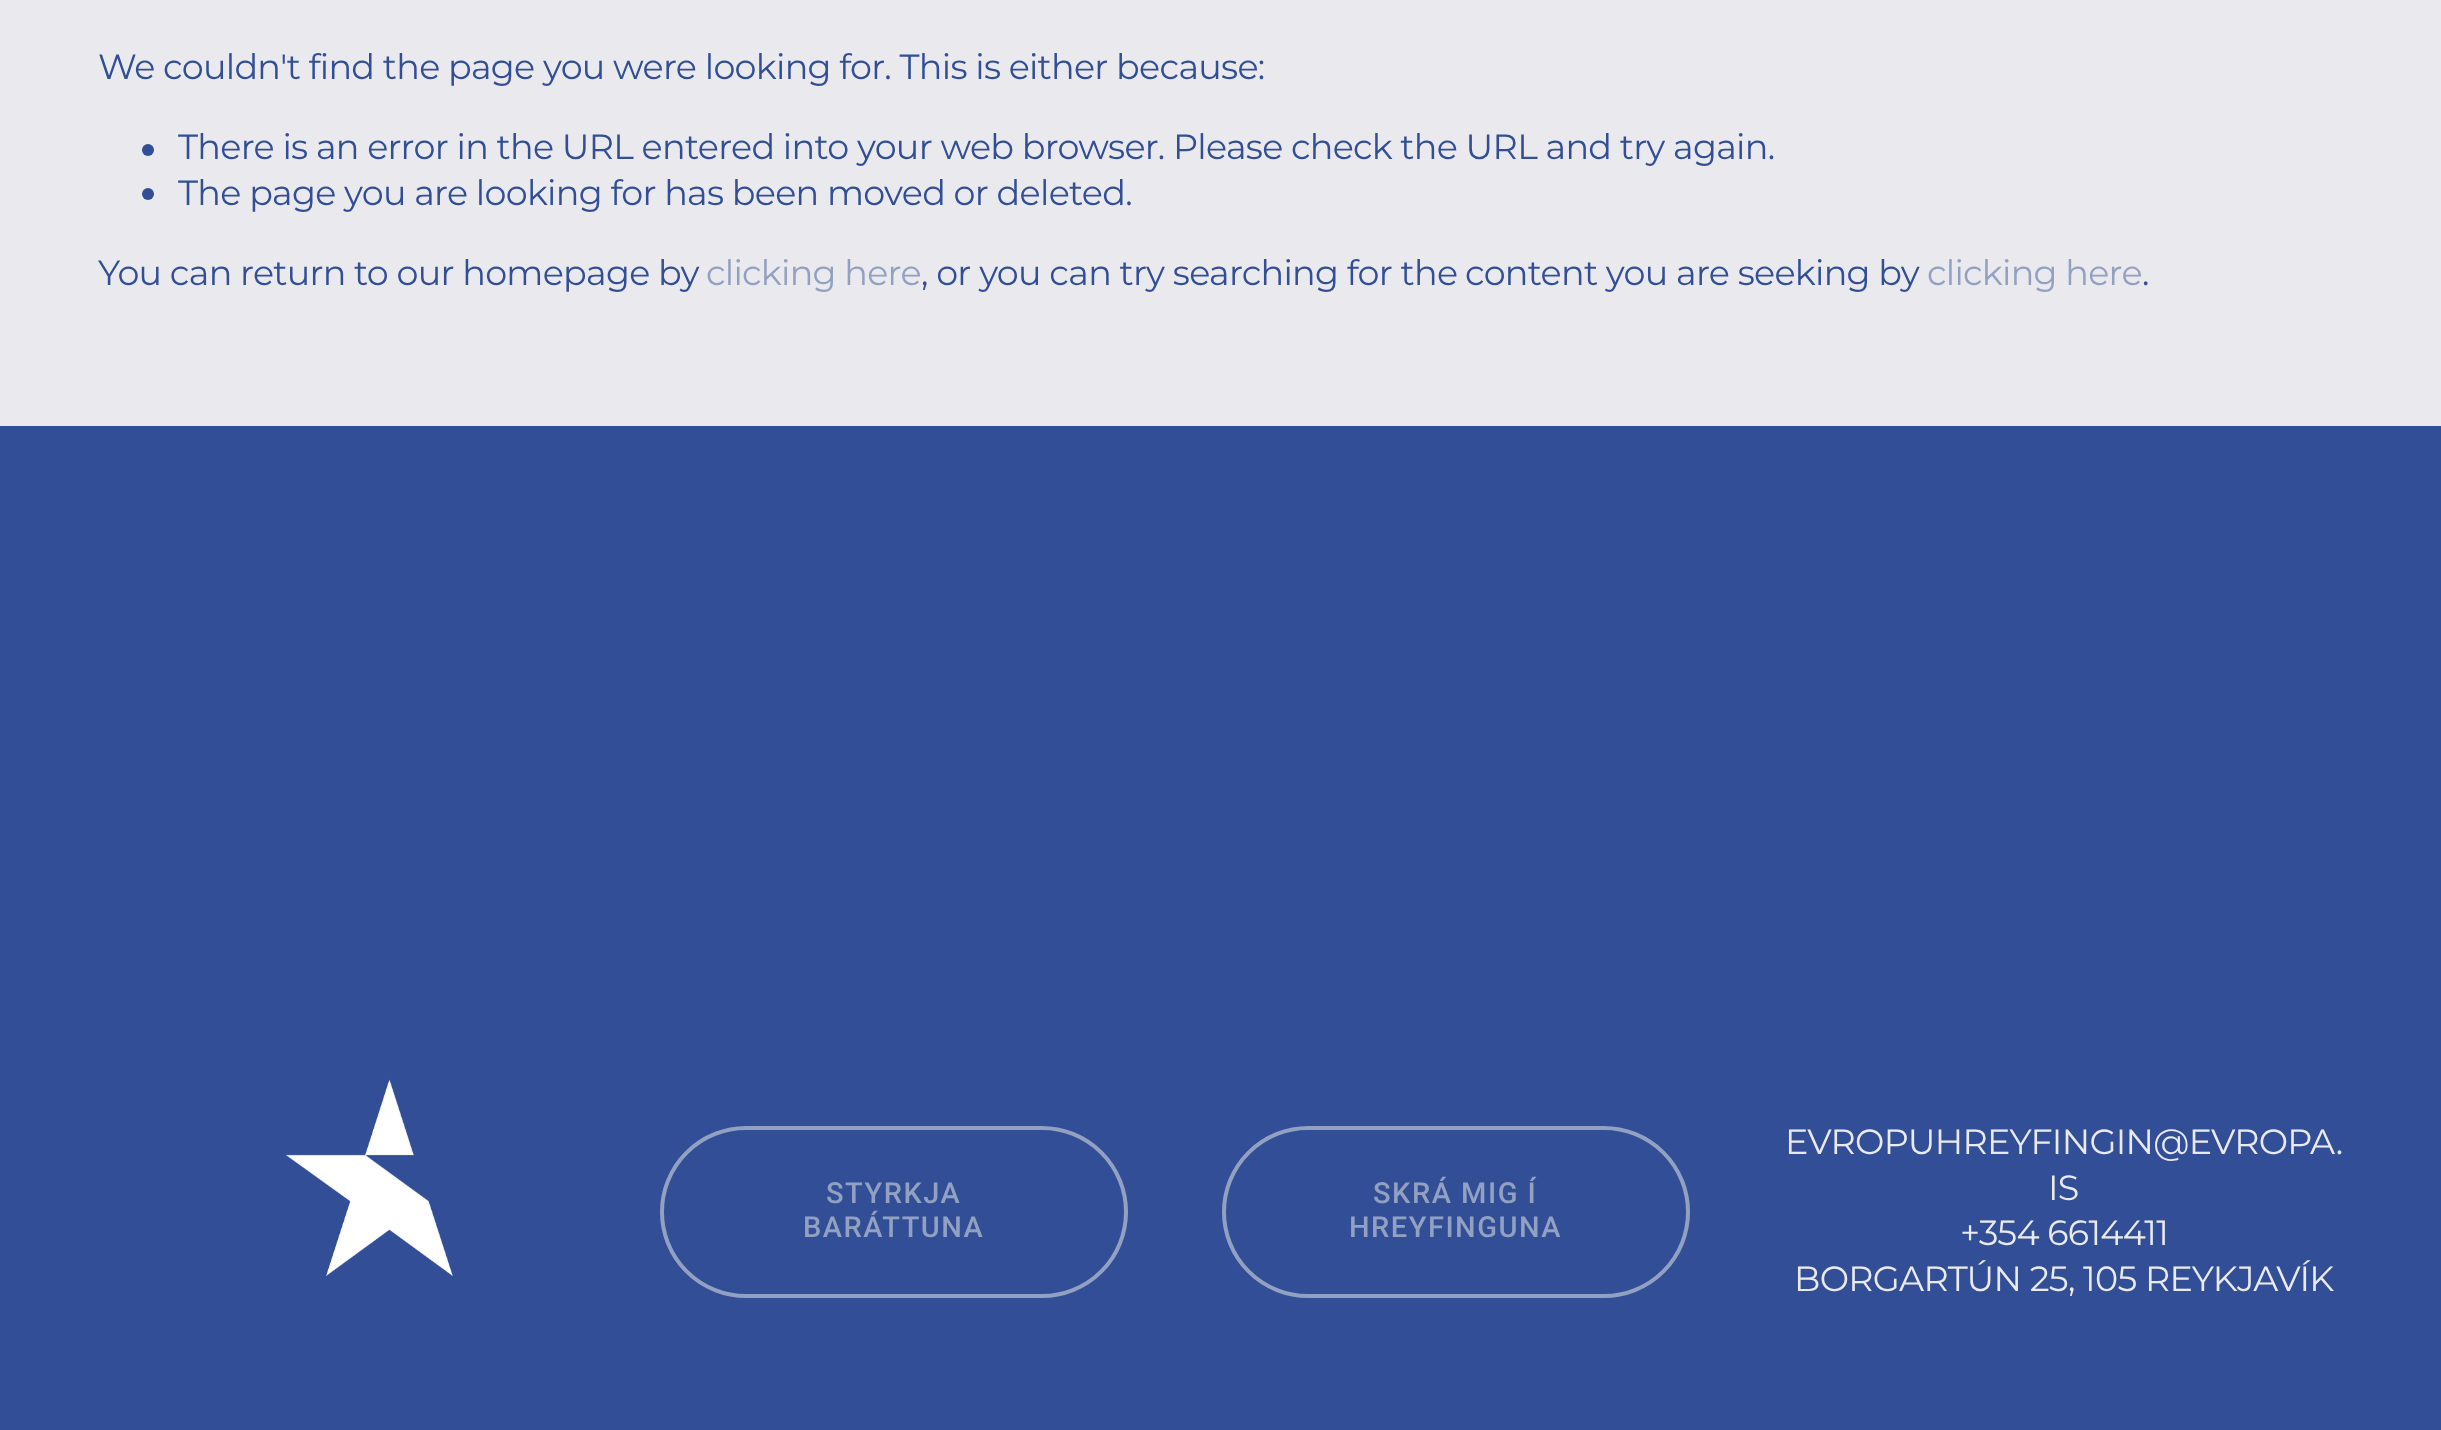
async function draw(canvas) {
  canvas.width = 2441;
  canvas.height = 1430;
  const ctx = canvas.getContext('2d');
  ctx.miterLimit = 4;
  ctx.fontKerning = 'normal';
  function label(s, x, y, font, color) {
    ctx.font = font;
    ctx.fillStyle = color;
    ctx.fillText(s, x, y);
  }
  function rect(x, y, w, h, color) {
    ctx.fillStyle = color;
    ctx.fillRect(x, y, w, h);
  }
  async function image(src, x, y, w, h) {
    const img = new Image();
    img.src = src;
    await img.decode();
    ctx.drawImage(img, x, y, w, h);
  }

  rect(0, 0, 2441, 1430, '#eaeaee');
  ctx.letterSpacing = '-0.7px';
  label('We couldn\'t find the page you were looking for. This is either because:', 98, 79, '34.95px Montserrat', '#314e97');
  ctx.beginPath();
  ctx.arc(148, 150, 6, 0, 2 * Math.PI);
  ctx.fill();
  label('There is an error in the URL entered into your web browser. Please check the URL and try again.', 178, 159, '34.95px Montserrat', '#314e97');
  ctx.beginPath();
  ctx.arc(148, 194, 6, 0, 2 * Math.PI);
  ctx.fill();
  label('The page you are looking for has been moved or deleted.', 178, 205, '34.95px Montserrat', '#314e97');
  label('You can return to our homepage by', 98, 285, '34.95px Montserrat', '#314e97');
  label('clicking here', 706, 285, '34.95px Montserrat', '#92a0c1');
  label(', or you can try searching for the', 921, 285, '34.95px Montserrat', '#314e97');
  label('content you are seeking by', 1465, 285, '34.95px Montserrat', '#314e97');
  label('clicking here', 1927, 285, '34.95px Montserrat', '#92a0c1');
  label('.', 2142, 285, '34.95px Montserrat', '#314e97');
  rect(0, 426, 2441, 1004, '#314e97');
  await image('assets/img1.png', 286, 1079, 167, 197);
  ctx.beginPath();
  ctx.roundRect(662, 1128, 464, 168, 84);
  ctx.strokeStyle = '#92a0c1';
  ctx.lineWidth = 4;
  ctx.stroke();
  ctx.letterSpacing = '1.5px';
  label('STYRKJA', 826, 1203, '500 29px Roboto', '#92a0c1');
  label('BARÁTTUNA', 803, 1237, '500 29px Roboto', '#92a0c1');
  ctx.beginPath();
  ctx.roundRect(1224, 1128, 464, 168, 84);
  ctx.stroke();
  label('SKRÁ MIG Í', 1373, 1203, '500 29px Roboto', '#92a0c1');
  label('HREYFINGUNA', 1349, 1237, '500 29px Roboto', '#92a0c1');
  ctx.letterSpacing = '-0.7px';
  label('EVROPUHREYFINGIN@EVROPA.', 1785, 1154, '34.95px Montserrat', '#eaeaee');
  label('IS', 2048, 1200, '34.95px Montserrat', '#eaeaee');
  label('+354 6614411', 1960, 1245, '34.95px Montserrat', '#eaeaee');
  label('BORGARTÚN 25, 105 REYKJAVÍK', 1794, 1291, '34.95px Montserrat', '#eaeaee');
}

draw(document.querySelector('canvas'));
